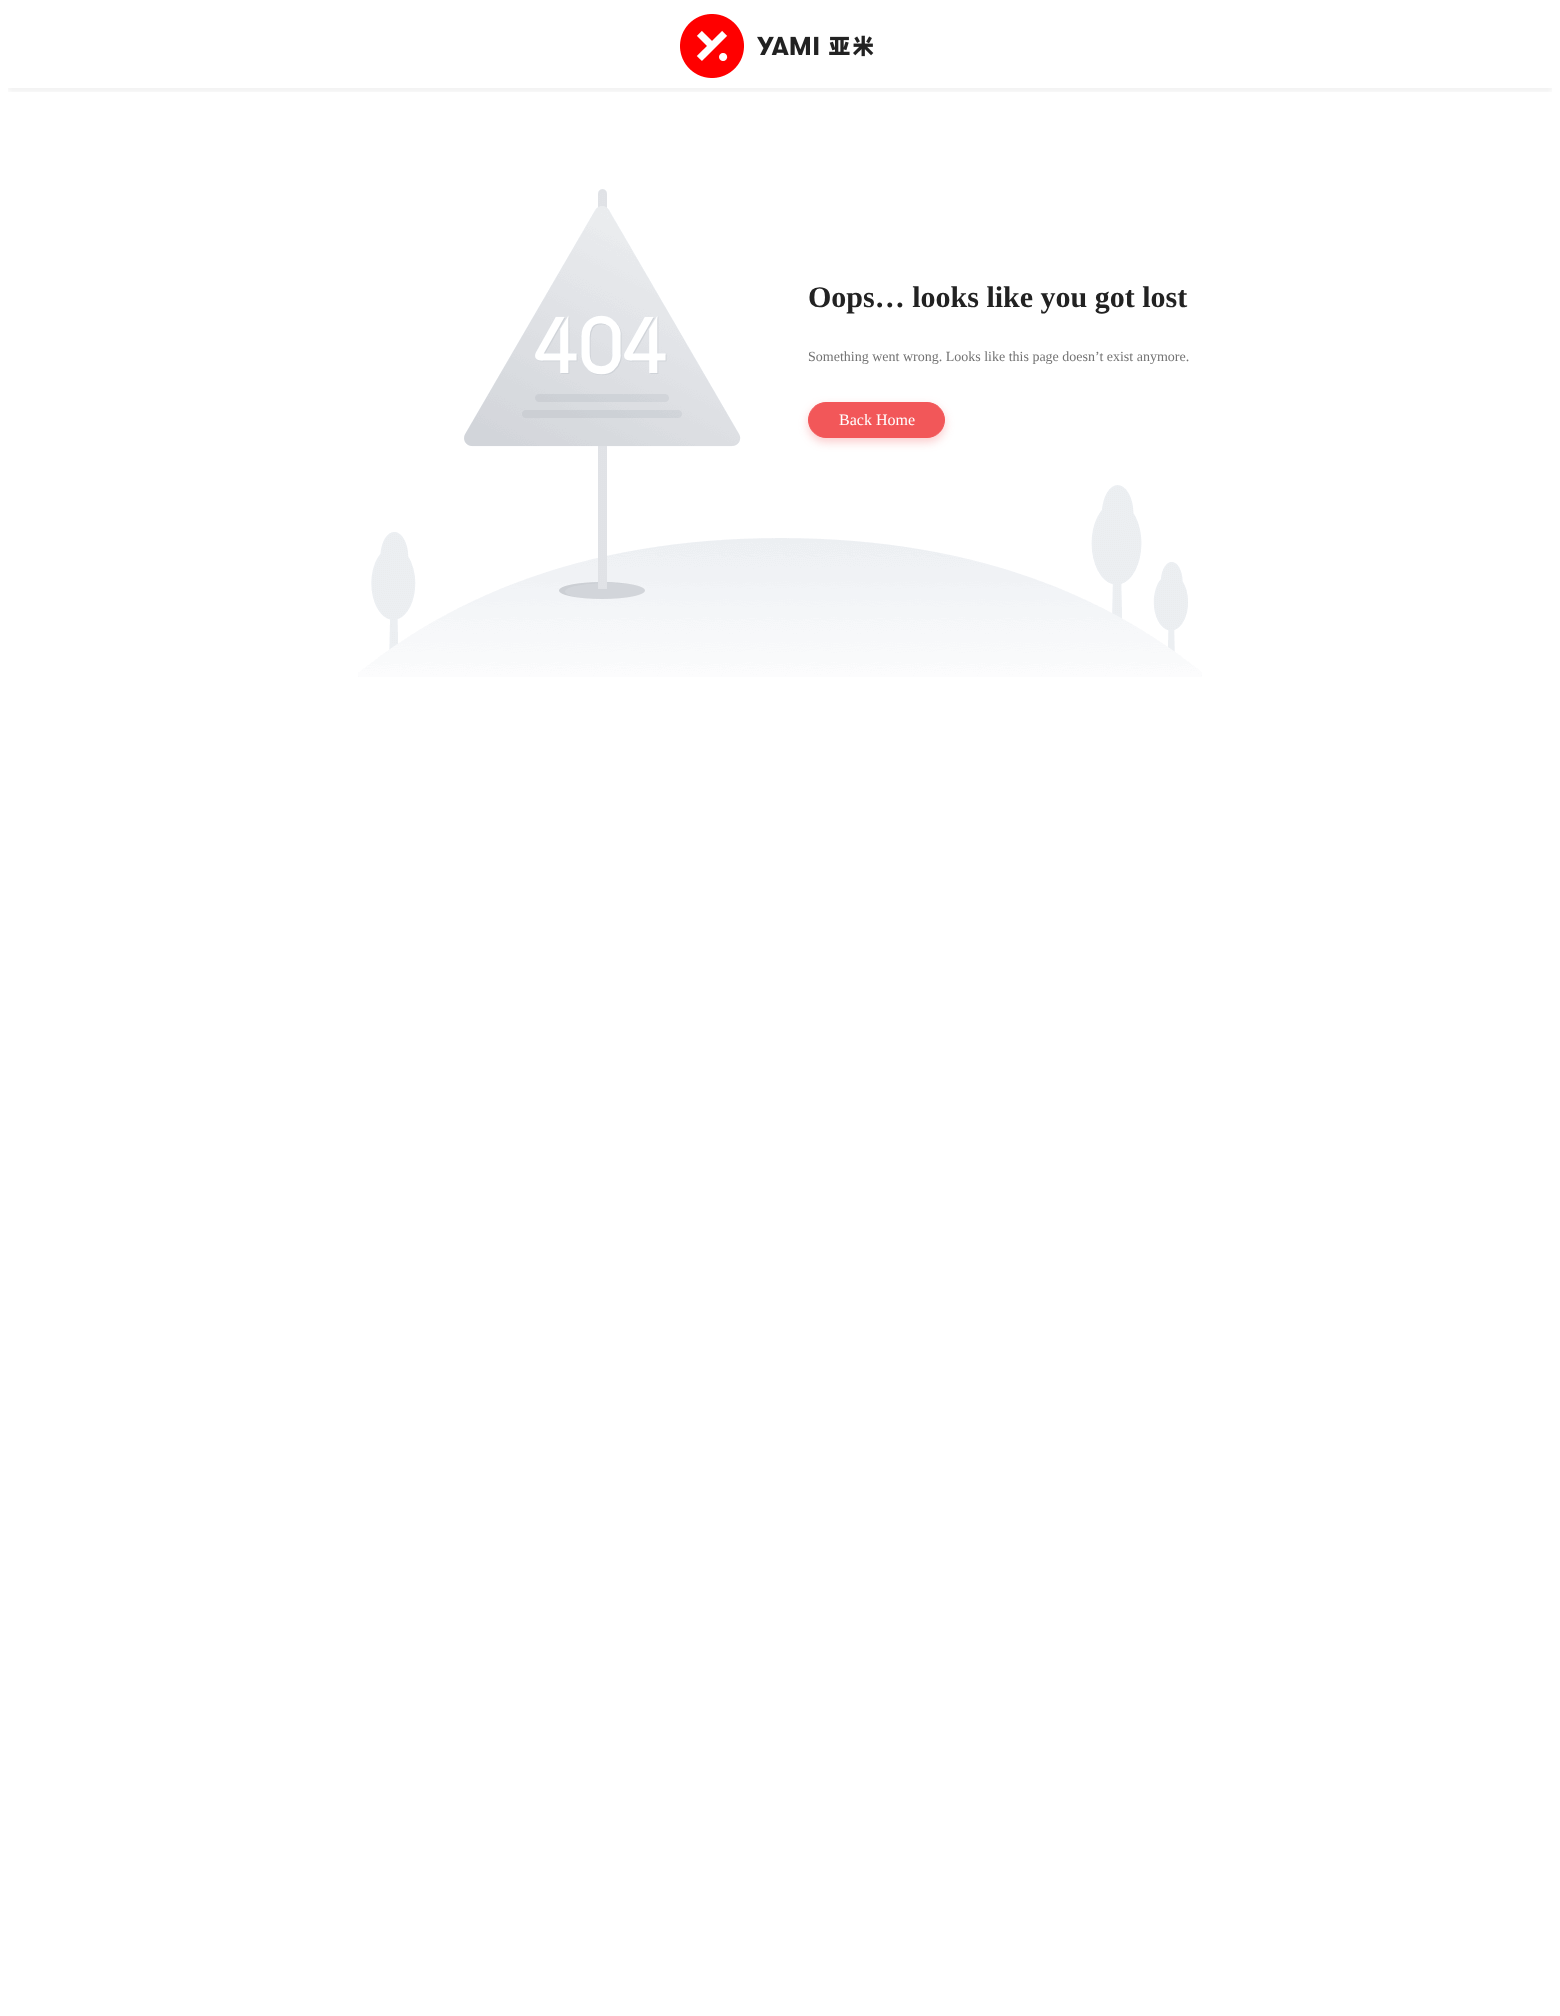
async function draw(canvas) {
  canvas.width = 1560;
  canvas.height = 2016;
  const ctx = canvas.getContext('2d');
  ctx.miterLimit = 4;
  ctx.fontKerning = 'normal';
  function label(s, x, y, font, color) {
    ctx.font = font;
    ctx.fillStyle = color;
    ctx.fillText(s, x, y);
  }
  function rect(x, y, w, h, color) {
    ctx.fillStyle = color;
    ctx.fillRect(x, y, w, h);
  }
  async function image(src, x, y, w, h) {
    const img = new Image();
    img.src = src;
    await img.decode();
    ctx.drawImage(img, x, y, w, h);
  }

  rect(0, 0, 1560, 2016, '#fff');
  ctx.save();
  ctx.beginPath();
  ctx.rect(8, 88, 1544, 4);
  ctx.clip();
  ctx.fillStyle = '#0000000d';
  ctx.filter = 'blur(2px)';
  ctx.beginPath();
  ctx.rect(8, 12, 1544, 80);
  ctx.fill();
  ctx.filter = 'none';
  ctx.restore();
  await image('assets/img1.png', 680, 14, 194, 64);
  await image('assets/img2.png', 358, 189, 844, 488);
  label('Oops… looks like you got lost', 808, 307, 'bold 30px Liberation Serif', '#222');
  label('Something went wrong. Looks like this page doesn’t exist anymore.', 808, 361, '14px Liberation Serif', '#737373');
  ctx.fillStyle = '#f257594d';
  ctx.filter = 'blur(5px)';
  ctx.beginPath();
  ctx.roundRect(808, 406, 137, 36, 18);
  ctx.fill();
  ctx.filter = 'none';
  ctx.fillStyle = '#f25759';
  ctx.beginPath();
  ctx.roundRect(808.5, 402.5, 136, 35, 17.5);
  ctx.fill();
  ctx.strokeStyle = '#f25759';
  ctx.stroke();
  label('Back Home', 839, 425, '16px Liberation Serif', '#fff');
}

draw(document.querySelector('canvas'));
